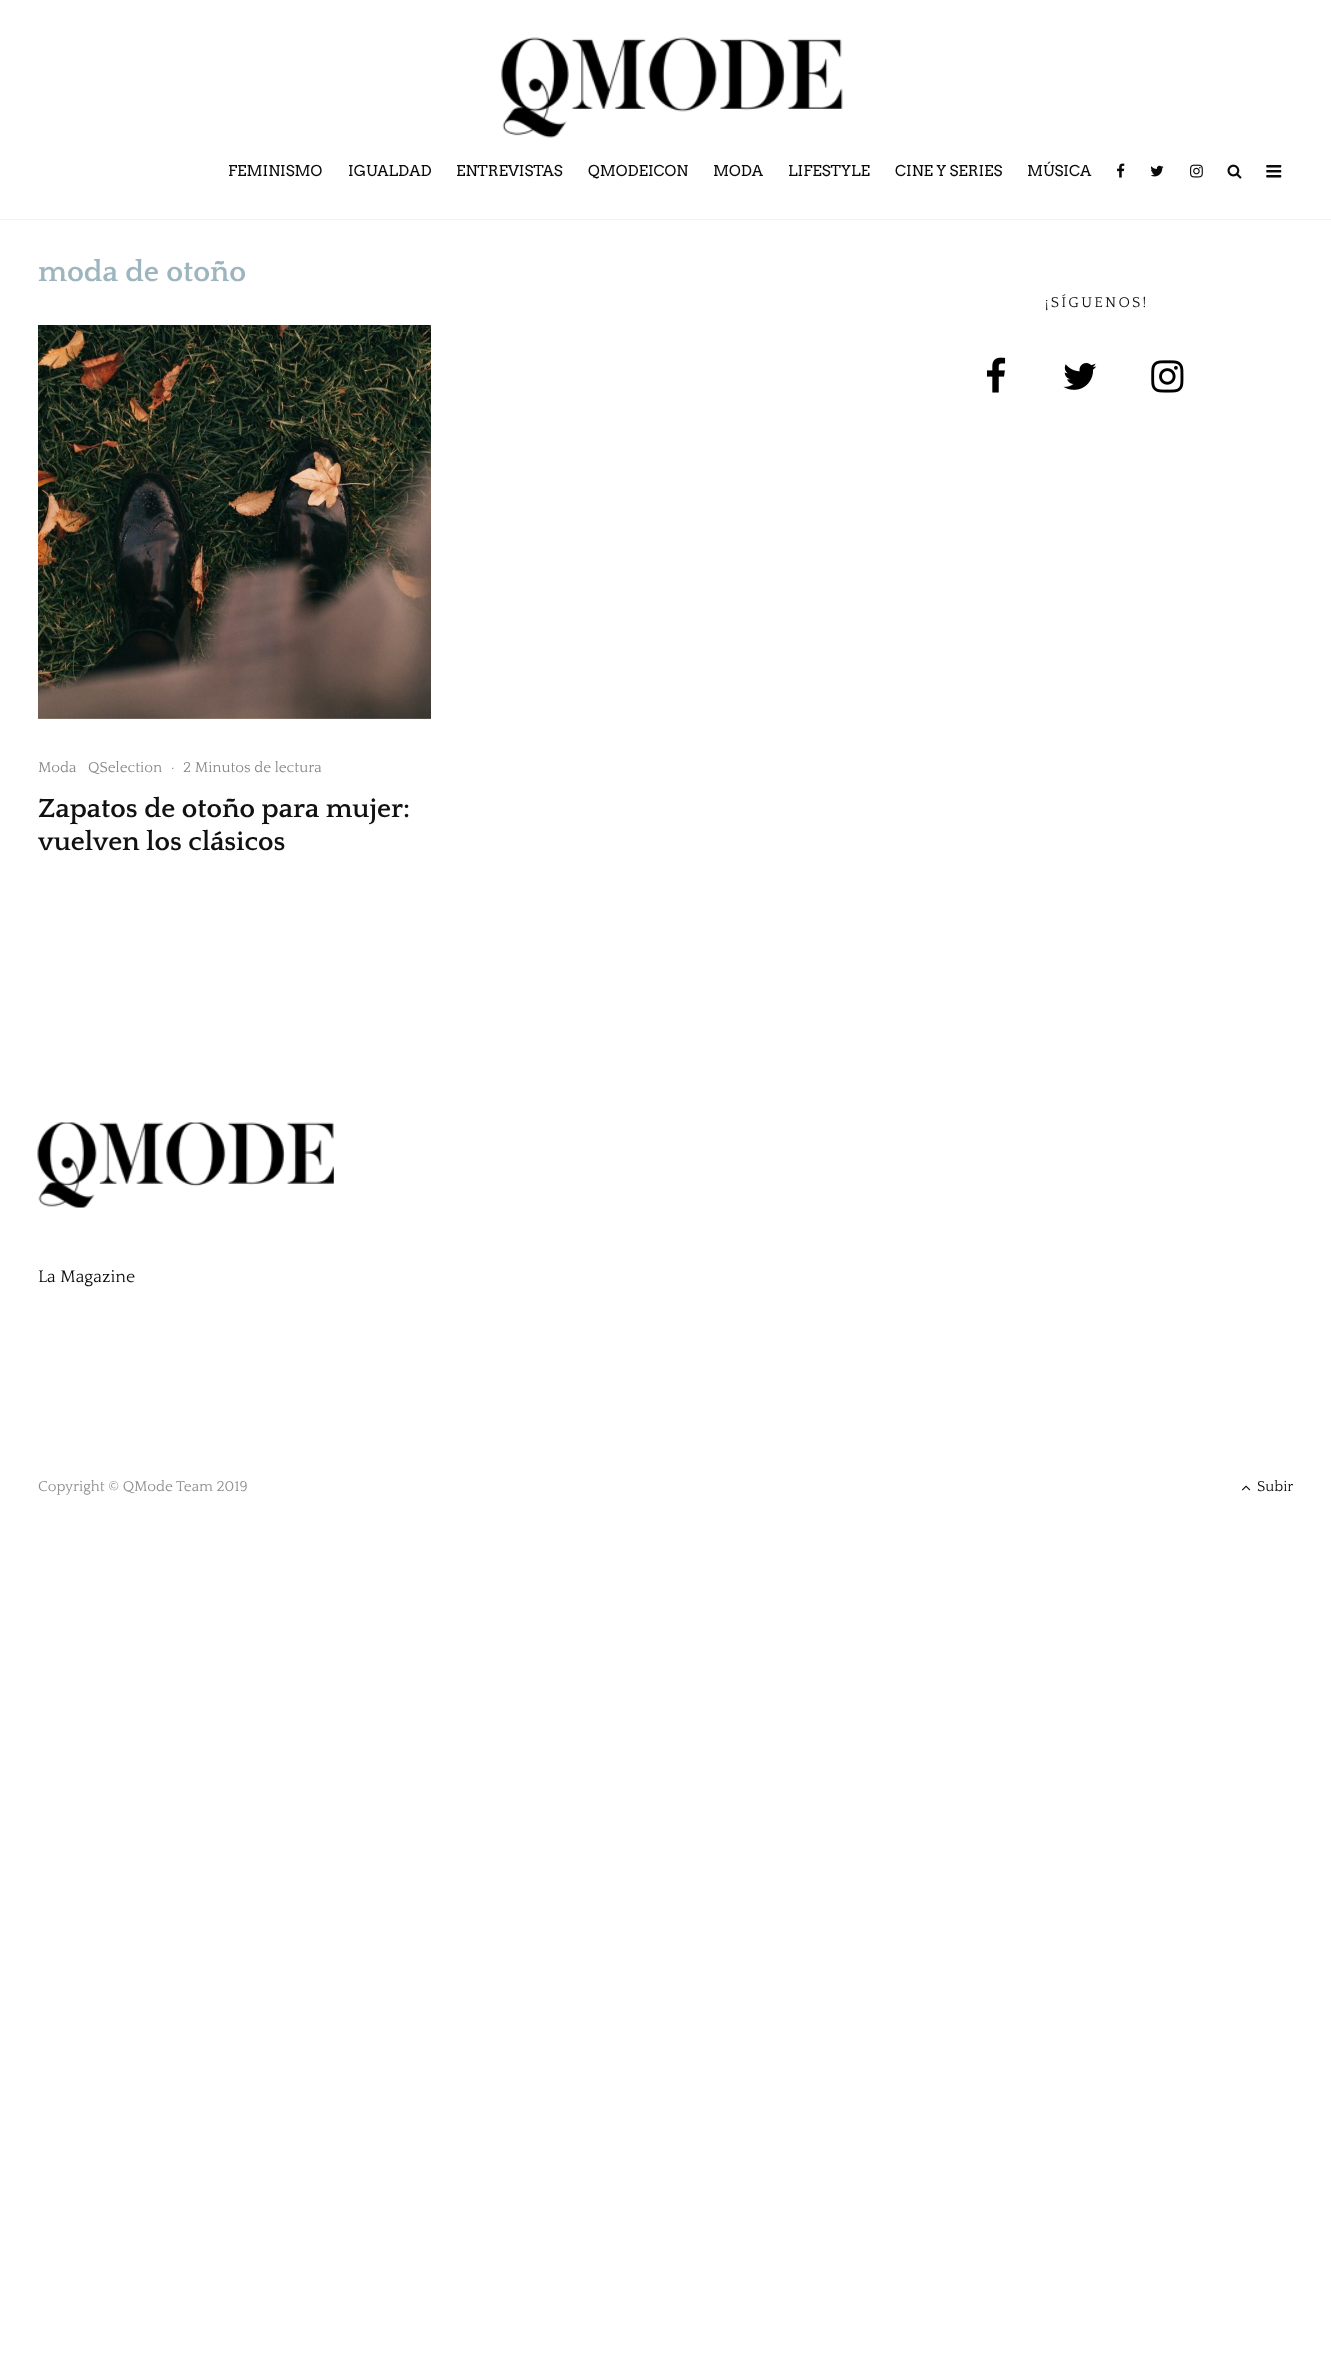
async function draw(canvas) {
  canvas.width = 1331;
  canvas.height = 2360;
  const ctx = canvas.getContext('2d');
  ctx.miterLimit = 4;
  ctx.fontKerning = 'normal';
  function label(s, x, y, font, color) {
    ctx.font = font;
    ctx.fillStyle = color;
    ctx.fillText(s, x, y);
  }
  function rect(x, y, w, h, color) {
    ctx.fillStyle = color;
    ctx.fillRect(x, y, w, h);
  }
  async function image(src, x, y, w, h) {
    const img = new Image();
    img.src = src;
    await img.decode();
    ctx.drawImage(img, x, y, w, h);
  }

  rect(0, 0, 1331, 2360, '#fff');
  await image('assets/img1.png', 501, 37, 342, 101);
  rect(0, 219, 1331, 1, '#f2f2f2');
  label('FEMINISMO', 228, 176, '15px Arvo', '#0a0a0a');
  label('IGUALDAD', 348, 176, '15px Arvo', '#0a0a0a');
  label('ENTREVISTAS', 456, 176, '15px Arvo', '#0a0a0a');
  label('QMODEICON', 588, 176, '15px Arvo', '#0a0a0a');
  label('MODA', 713, 176, '15px Arvo', '#0a0a0a');
  label('LIFESTYLE', 788, 176, '15px Arvo', '#0a0a0a');
  label('CINE Y SERIES', 895, 176, '15px Arvo', '#0a0a0a');
  label('MÚSICA', 1027, 176, '15px Arvo', '#0a0a0a');
  await image('assets/img2.png', 1117, 163, 8, 15);
  await image('assets/img3.png', 1150, 165, 14, 12);
  await image('assets/img4.png', 1190, 164, 13, 14);
  await image('assets/img5.png', 1227, 164, 15, 15);
  await image('assets/img6.png', 1266, 165, 16, 13);
  label('moda de otoño', 38, 281, 'bold 30px Quattrocento', '#9db5bf');
  await image('assets/img7.png', 38, 325, 393, 394);
  label('Moda', 38, 772, '15px Quattrocento', '#888');
  label('QSelection', 88, 772, '15px Quattrocento', '#888');
  label('·', 171, 772, '15px Quattrocento', '#888');
  label('2 Minutos de lectura', 183, 772, '15px Quattrocento', '#888');
  label('Zapatos de otoño para mujer:', 38, 817, 'bold 27.5px Quattrocento', '#111');
  label('vuelven los clásicos', 38, 850, 'bold 27.5px Quattrocento', '#111');
  ctx.letterSpacing = '2.25px';
  label('¡SÍGUENOS!', 1045, 307, '15px Quattrocento', '#111');
  await image('assets/img8.png', 986, 357, 20, 36);
  await image('assets/img9.png', 1063, 363, 34, 27);
  await image('assets/img10.png', 1151, 360, 33, 33);
  await image('assets/img11.png', 37, 1122, 297, 86);
  ctx.letterSpacing = '0px';
  label('La Magazine', 38, 1282, '17.5px Quattrocento', '#0a0a0a');
  label('Copyright © QMode Team 2019', 38, 1491, '15px Quattrocento', '#8e8e8e');
  await image('assets/img12.png', 1241, 1485, 10, 6);
  label('Subir', 1257, 1491, '15px Quattrocento', '#0a0a0a');
}

draw(document.querySelector('canvas'));
